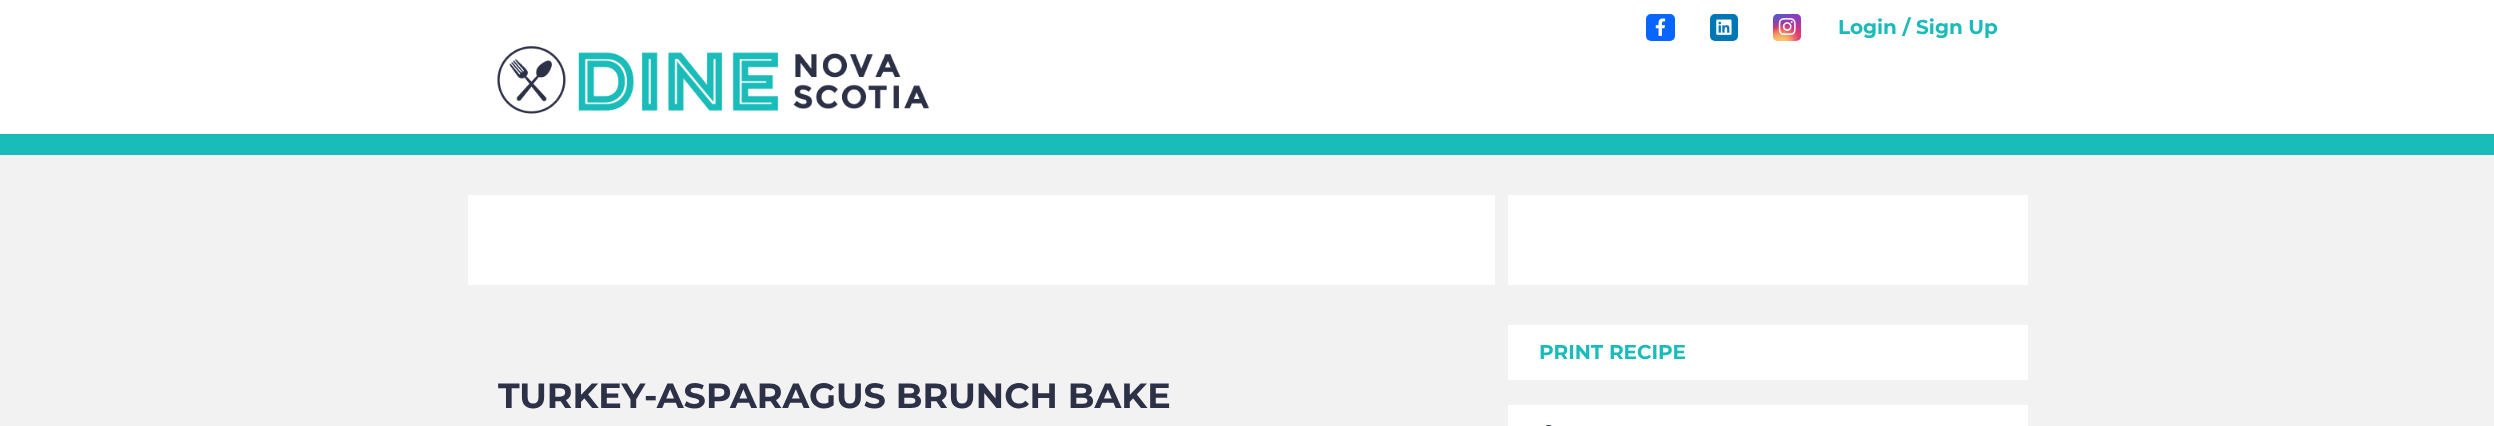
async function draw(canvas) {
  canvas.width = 2494;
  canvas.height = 426;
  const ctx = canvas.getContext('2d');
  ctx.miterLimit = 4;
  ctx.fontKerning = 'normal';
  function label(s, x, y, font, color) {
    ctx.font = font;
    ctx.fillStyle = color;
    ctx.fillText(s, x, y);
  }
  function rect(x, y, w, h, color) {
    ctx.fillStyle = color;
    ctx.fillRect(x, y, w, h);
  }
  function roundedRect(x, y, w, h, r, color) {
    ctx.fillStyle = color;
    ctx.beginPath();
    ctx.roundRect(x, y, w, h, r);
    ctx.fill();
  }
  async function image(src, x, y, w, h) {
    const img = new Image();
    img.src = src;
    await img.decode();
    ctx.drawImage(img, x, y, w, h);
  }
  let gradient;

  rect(0, 0, 2494, 426, '#fff');
  roundedRect(1646, 14, 29, 27, 5, '#0866ff');
  await image('assets/img1.png', 1655, 18, 11, 18);
  roundedRect(1710, 14, 28, 27, 5, '#0077b5');
  await image('assets/img2.png', 1716, 19, 16, 16);
  gradient = ctx.createLinearGradient(1787, 14, 1787, 41);
  gradient.addColorStop(0, '#6559ca');
  gradient.addColorStop(0.3, '#bc318f');
  gradient.addColorStop(0.5, '#e42e66');
  gradient.addColorStop(0.7, '#fa5332');
  gradient.addColorStop(1, '#ffdc80');
  ctx.fillStyle = gradient;
  ctx.beginPath();
  ctx.roundRect(1773, 14, 28, 27, 5);
  ctx.fill();
  gradient = ctx.createRadialGradient(1801, 43.1, 0, 1801, 43.1, 41);
  gradient.addColorStop(0, '#d9317a');
  gradient.addColorStop(1, '#d9317a00');
  ctx.fillStyle = gradient;
  ctx.beginPath();
  ctx.roundRect(1773, 14, 28, 27, 5);
  ctx.save();
  ctx.clip();
  ctx.scale(1, 39 / 41);
  ctx.fillRect(0, 0, 2494, 448);
  ctx.restore();
  gradient = ctx.createRadialGradient(1790, 4.09, 0, 1790, 4.09, 24);
  gradient.addColorStop(0, '#893dc2');
  gradient.addColorStop(0.5, '#893dc200');
  ctx.fillStyle = gradient;
  ctx.beginPath();
  ctx.roundRect(1773, 14, 28, 27, 5);
  ctx.save();
  ctx.clip();
  ctx.scale(1, 47 / 24);
  ctx.fillRect(0, 0, 2494, 218);
  ctx.restore();
  gradient = ctx.createRadialGradient(1801, 14.72, 0, 1801, 14.72, 41);
  gradient.addColorStop(0, '#893dc2');
  gradient.addColorStop(0.5, '#893dc200');
  ctx.fillStyle = gradient;
  ctx.beginPath();
  ctx.roundRect(1773, 14, 28, 27, 5);
  ctx.save();
  ctx.clip();
  ctx.scale(1, 39 / 41);
  ctx.fillRect(0, 0, 2494, 448);
  ctx.restore();
  gradient = ctx.createRadialGradient(1778, 0, 0, 1778, 0, 33);
  gradient.addColorStop(0, '#5258cf');
  gradient.addColorStop(0.5, '#5258cf00');
  ctx.fillStyle = gradient;
  ctx.beginPath();
  ctx.roundRect(1773, 14, 28, 27, 5);
  ctx.save();
  ctx.clip();
  ctx.scale(1, 58 / 33);
  ctx.fillRect(0, 0, 2494, 243);
  ctx.restore();
  gradient = ctx.createRadialGradient(1773, 5.77, 0, 1773, 5.77, 41);
  gradient.addColorStop(0, '#5258cf');
  gradient.addColorStop(0.5, '#5258cf00');
  ctx.fillStyle = gradient;
  ctx.beginPath();
  ctx.roundRect(1773, 14, 28, 27, 5);
  ctx.save();
  ctx.clip();
  ctx.scale(1, 49 / 41);
  ctx.fillRect(0, 0, 2494, 357);
  ctx.restore();
  gradient = ctx.createRadialGradient(1775, 52, 0, 1775, 52, 46);
  gradient.addColorStop(0, '#feda7e');
  gradient.addColorStop(0.5, '#feda7e00');
  ctx.fillStyle = gradient;
  ctx.beginPath();
  ctx.roundRect(1773, 14, 28, 27, 5);
  ctx.fill();
  gradient = ctx.createRadialGradient(1783, 41, 0, 1783, 41, 33);
  gradient.addColorStop(0, '#fec564');
  gradient.addColorStop(0.5, '#fec56400');
  ctx.fillStyle = gradient;
  ctx.beginPath();
  ctx.roundRect(1773, 14, 28, 27, 5);
  ctx.fill();
  await image('assets/img3.png', 1778, 18, 18, 17);
  label('Login / Sign Up', 1838, 34, 'bold 20px Montserrat', '#19bcb9');
  rect(0, 134, 2494, 21, '#19bcb9');
  await image('assets/img4.png', 497, 46, 433, 68);
  rect(0, 155, 2494, 271, '#f2f2f2');
  rect(468, 195, 1027, 90, '#fff');
  rect(1508, 195, 520, 90, '#fff');
  rect(1508, 325, 520, 55, '#fff');
  label('PRINT RECIPE', 1539, 359, 'bold 20px Montserrat', '#19bcb9');
  rect(1508, 405, 520, 21, '#fff');
  await image('assets/img5.png', 1546, 425, 6, 1);
  label('TURKEY-ASPARAGUS BRUNCH BAKE', 498, 408, 'bold 35px Montserrat', '#2d3147');
}

draw(document.querySelector('canvas'));
